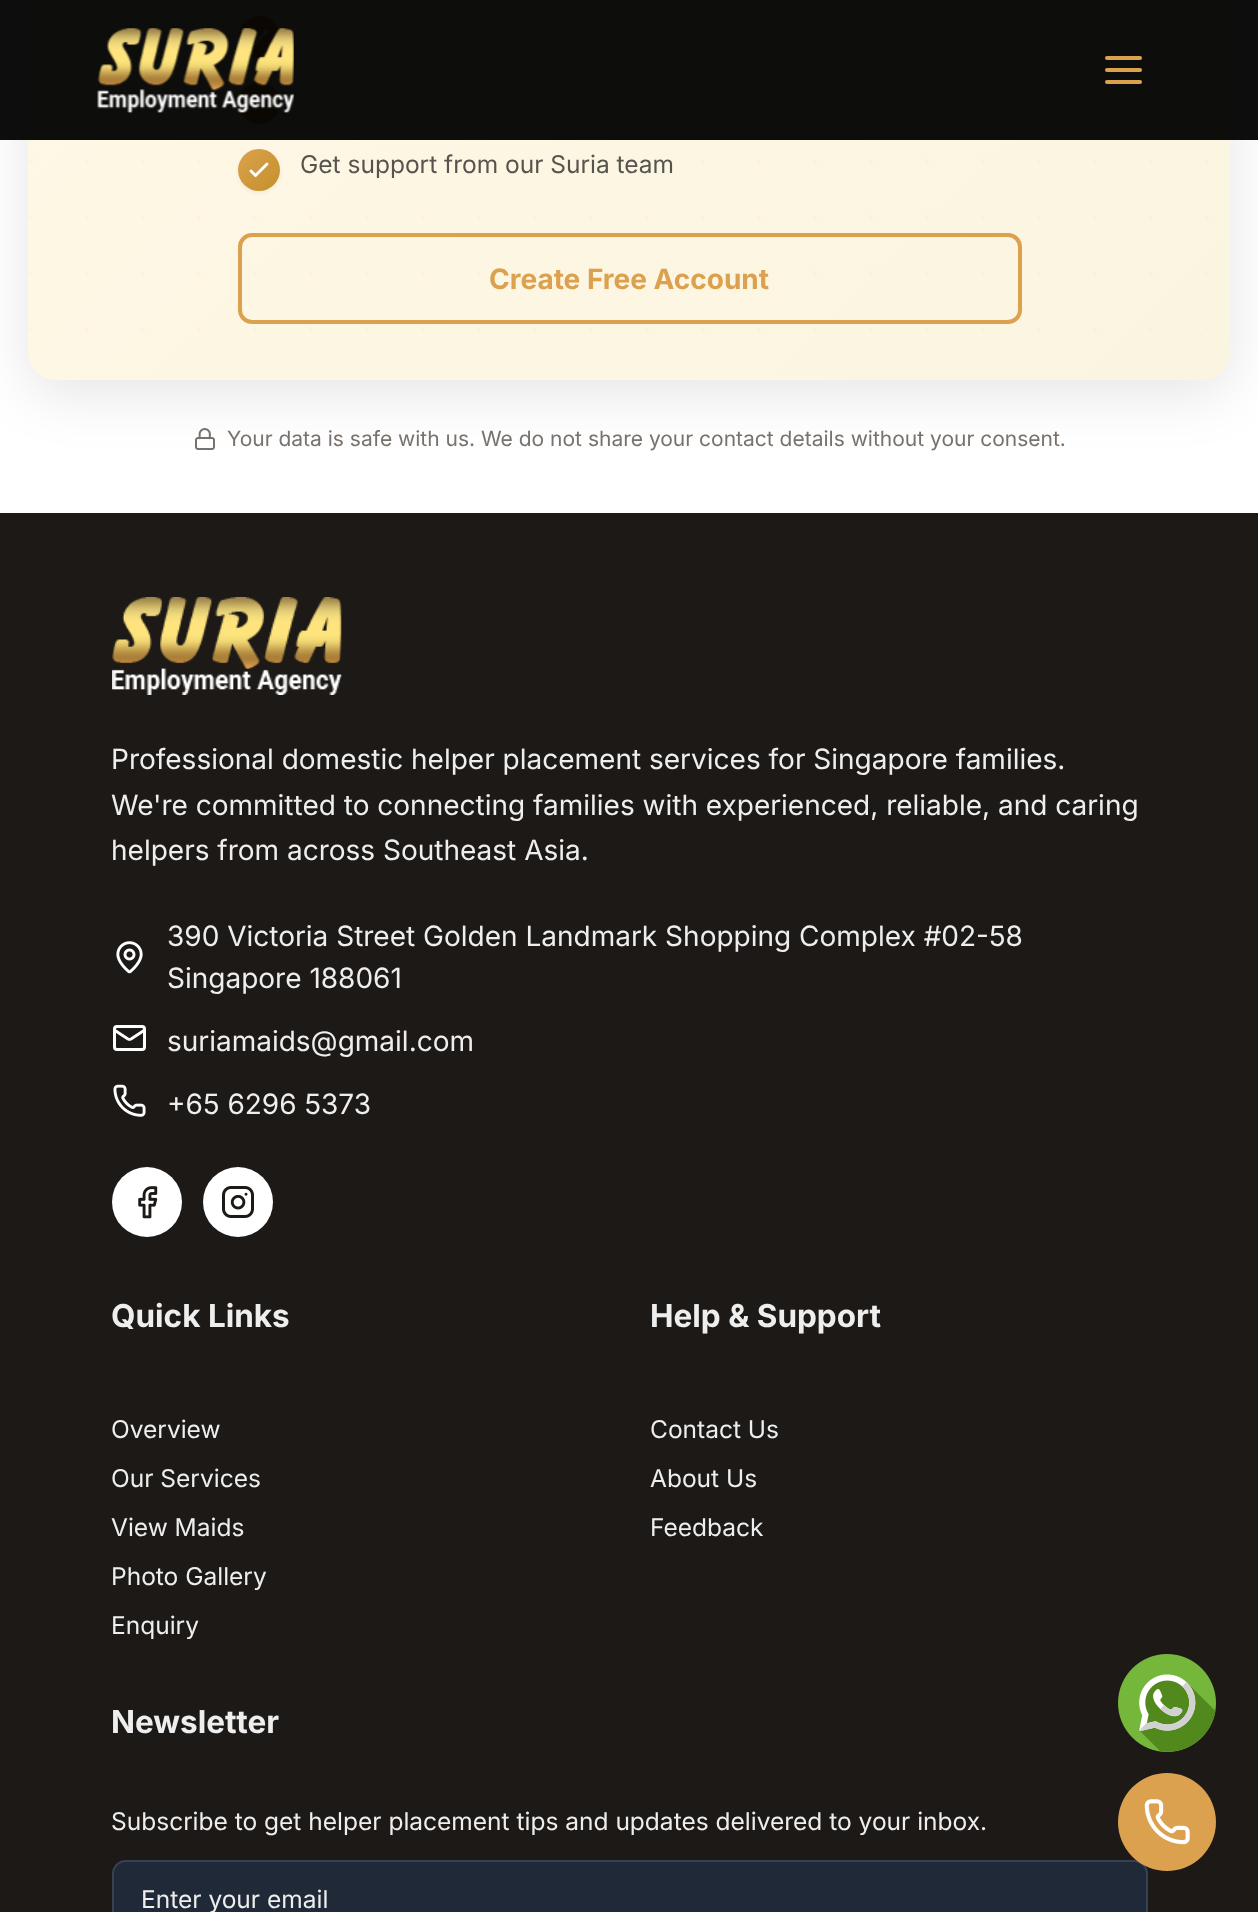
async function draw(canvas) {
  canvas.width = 1258;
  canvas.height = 1912;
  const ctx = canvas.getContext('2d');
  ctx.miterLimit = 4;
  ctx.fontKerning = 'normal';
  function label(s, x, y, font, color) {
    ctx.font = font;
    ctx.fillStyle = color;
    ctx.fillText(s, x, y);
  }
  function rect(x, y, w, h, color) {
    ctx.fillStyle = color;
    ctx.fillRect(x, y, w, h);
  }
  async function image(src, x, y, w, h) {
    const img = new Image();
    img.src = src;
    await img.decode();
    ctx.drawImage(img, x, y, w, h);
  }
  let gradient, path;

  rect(0, 0, 1258, 1912, '#fff');
  ctx.fillStyle = '#0000001a';
  ctx.filter = 'blur(28px)';
  ctx.beginPath();
  ctx.roundRect(28, -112, 1202, 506, 28);
  ctx.fill();
  ctx.filter = 'none';
  gradient = ctx.createLinearGradient(161, -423, 1097, 513);
  gradient.addColorStop(0, '#fef9e7');
  gradient.addColorStop(0.5, '#fdf6e3');
  gradient.addColorStop(1, '#faf5e1');
  ctx.fillStyle = gradient;
  path = new Path2D('M28-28H1230V352C1230 367.5 1217.5 380 1202 380H56C40.5 380 28 367.5 28 352Z');
  ctx.fill(path);
  path = new Path2D('M31.5 49H1207.9');
  ctx.strokeStyle = '#dba14e0d';
  ctx.lineWidth = 3.5;
  ctx.lineCap = 'round';
  ctx.setLineDash([0, 56]);
  ctx.stroke(path);
  path = new Path2D('M31.5 105H1207.9');
  ctx.stroke(path);
  ctx.fillStyle = '#0000000d';
  ctx.filter = 'blur(2px)';
  ctx.beginPath();
  ctx.roundRect(238, 18, 42, 42, 21);
  ctx.fill();
  ctx.filter = 'none';
  gradient = ctx.createLinearGradient(238, 16, 280, 58);
  gradient.addColorStop(0, '#dba14e');
  gradient.addColorStop(1, '#c4912a');
  ctx.fillStyle = gradient;
  ctx.beginPath();
  ctx.arc(259, 37, 21, 0, 2 * Math.PI);
  ctx.fill();
  path = new Path2D('M251 38L255.5 42.5L267 31');
  ctx.strokeStyle = '#fff';
  ctx.lineWidth = 2.9;
  ctx.lineJoin = 'round';
  ctx.setLineDash([]);
  ctx.stroke(path);
  ctx.fillStyle = '#0000000d';
  ctx.filter = 'blur(2px)';
  ctx.beginPath();
  ctx.roundRect(238, 84, 42, 42, 21);
  ctx.fill();
  ctx.filter = 'none';
  gradient = ctx.createLinearGradient(238, 82, 280, 124);
  gradient.addColorStop(0, '#dba14e');
  gradient.addColorStop(1, '#c4912a');
  ctx.fillStyle = gradient;
  ctx.beginPath();
  ctx.arc(259, 103, 21, 0, 2 * Math.PI);
  ctx.fill();
  path = new Path2D('M251 104.5L255.5 109L267 97.5');
  ctx.stroke(path);
  rect(0, 0, 1258, 140, '#000000f2');
  await image('assets/img1.png', 97, 28, 197, 85);
  path = new Path2D('M1107 58H1140M1107 70H1140M1107 82H1140');
  ctx.strokeStyle = '#dba14e';
  ctx.lineWidth = 4.1;
  ctx.stroke(path);
  path = new Path2D('M31.5 161H1207.9');
  ctx.strokeStyle = '#dba14e0d';
  ctx.lineWidth = 3.5;
  ctx.lineJoin = 'miter';
  ctx.setLineDash([0, 56]);
  ctx.stroke(path);
  path = new Path2D('M31.5 217H1207.9');
  ctx.stroke(path);
  path = new Path2D('M31.5 273H1207.9');
  ctx.stroke(path);
  path = new Path2D('M31.5 329H1207.9');
  ctx.stroke(path);
  ctx.fillStyle = '#0000000d';
  ctx.filter = 'blur(2px)';
  ctx.beginPath();
  ctx.roundRect(238, 151, 42, 42, 21);
  ctx.fill();
  ctx.filter = 'none';
  gradient = ctx.createLinearGradient(238, 149, 280, 191);
  gradient.addColorStop(0, '#dba14e');
  gradient.addColorStop(1, '#c4912a');
  ctx.fillStyle = gradient;
  ctx.beginPath();
  ctx.arc(259, 170, 21, 0, 2 * Math.PI);
  ctx.fill();
  path = new Path2D('M251 171L255.5 175.5L267 164');
  ctx.strokeStyle = '#fff';
  ctx.lineWidth = 2.9;
  ctx.lineJoin = 'round';
  ctx.setLineDash([]);
  ctx.stroke(path);
  label('Get support from our Suria team', 300, 173, '24.5px Inter', '#57534e');
  ctx.beginPath();
  ctx.roundRect(240, 235, 780, 87, 12);
  ctx.strokeStyle = '#dba14e';
  ctx.lineWidth = 4;
  ctx.lineJoin = 'miter';
  ctx.stroke();
  label('Create Free Account', 489, 289, 'bold 28px Inter', '#dba14e');
  await image('assets/img2.png', 195, 428, 20, 22);
  label('Your data is safe with us. We do not share your contact details without your consent.', 227, 446, '21px Inter', '#78716c');
  rect(0, 513, 1258, 1399, '#1c1917');
  await image('assets/img3.png', 112, 597, 230, 98);
  label('Professional domestic helper placement services for Singapore families.', 111, 769, '28px Inter', '#eee');
  label('We\'re committed to connecting families with experienced, reliable, and caring', 111, 815, '28px Inter', '#eee');
  label('helpers from across Southeast Asia.', 111, 860, '28px Inter', '#eee');
  await image('assets/img4.png', 116, 941, 27, 33);
  label('390 Victoria Street Golden Landmark Shopping Complex #02-58', 167, 946, '28px Inter', '#eee');
  label('Singapore 188061', 167, 988, '28px Inter', '#eee');
  path = new Path2D('M144 1030.5L131 1039C130 1039.5 129 1039.5 128 1039L115 1030.5');
  ctx.strokeStyle = '#fff';
  ctx.lineWidth = 2.9;
  ctx.lineJoin = 'round';
  ctx.stroke(path);
  ctx.beginPath();
  ctx.roundRect(114.5, 1026.5, 30, 23, 2.5);
  ctx.lineWidth = 3;
  ctx.lineJoin = 'miter';
  ctx.stroke();
  label('suriamaids@gmail.com', 167, 1051, '28px Inter', '#eee');
  await image('assets/img5.png', 113, 1084, 33, 33);
  label('+65 6296 5373', 167, 1114, '28px Inter', '#eee');
  ctx.fillStyle = '#fff';
  ctx.beginPath();
  ctx.arc(147, 1202, 35, 0, 2 * Math.PI);
  ctx.fill();
  await image('assets/img6.png', 138, 1186, 20, 33);
  ctx.beginPath();
  ctx.arc(238, 1202, 35, 0, 2 * Math.PI);
  ctx.fill();
  await image('assets/img7.png', 222, 1186, 32, 32);
  label('Quick Links', 111, 1327, 'bold 31.5px Inter', '#eee');
  label('Overview', 111, 1438, '24.5px Inter', '#eee');
  label('Our Services', 111, 1487, '24.5px Inter', '#eee');
  label('View Maids', 111, 1536, '24.5px Inter', '#eee');
  label('Photo Gallery', 111, 1585, '24.5px Inter', '#eee');
  label('Enquiry', 111, 1634, '24.5px Inter', '#eee');
  label('Help & Support', 650, 1327, 'bold 31.5px Inter', '#eee');
  label('Contact Us', 650, 1438, '24.5px Inter', '#eee');
  label('About Us', 650, 1487, '24.5px Inter', '#eee');
  label('Feedback', 650, 1536, '24.5px Inter', '#eee');
  label('Newsletter', 111, 1733, 'bold 31.5px Inter', '#eee');
  label('Subscribe to get helper placement tips and updates delivered to your inbox.', 111, 1830, '24.5px Inter', '#eee');
  ctx.fillStyle = '#1f2937';
  ctx.beginPath();
  ctx.roundRect(113, 1861, 1034, 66, 13);
  ctx.fill();
  ctx.strokeStyle = '#374151';
  ctx.lineWidth = 2;
  ctx.stroke();
  label('Enter your email', 141, 1908, '24.5px Inter', '#eee');
  await image('assets/img8.png', 1118, 1654, 98, 98);
  ctx.fillStyle = '#dba14e';
  ctx.beginPath();
  ctx.arc(1167, 1822, 49, 0, 2 * Math.PI);
  ctx.fill();
  await image('assets/img9.png', 1144, 1799, 46, 46);
}

draw(document.querySelector('canvas'));
